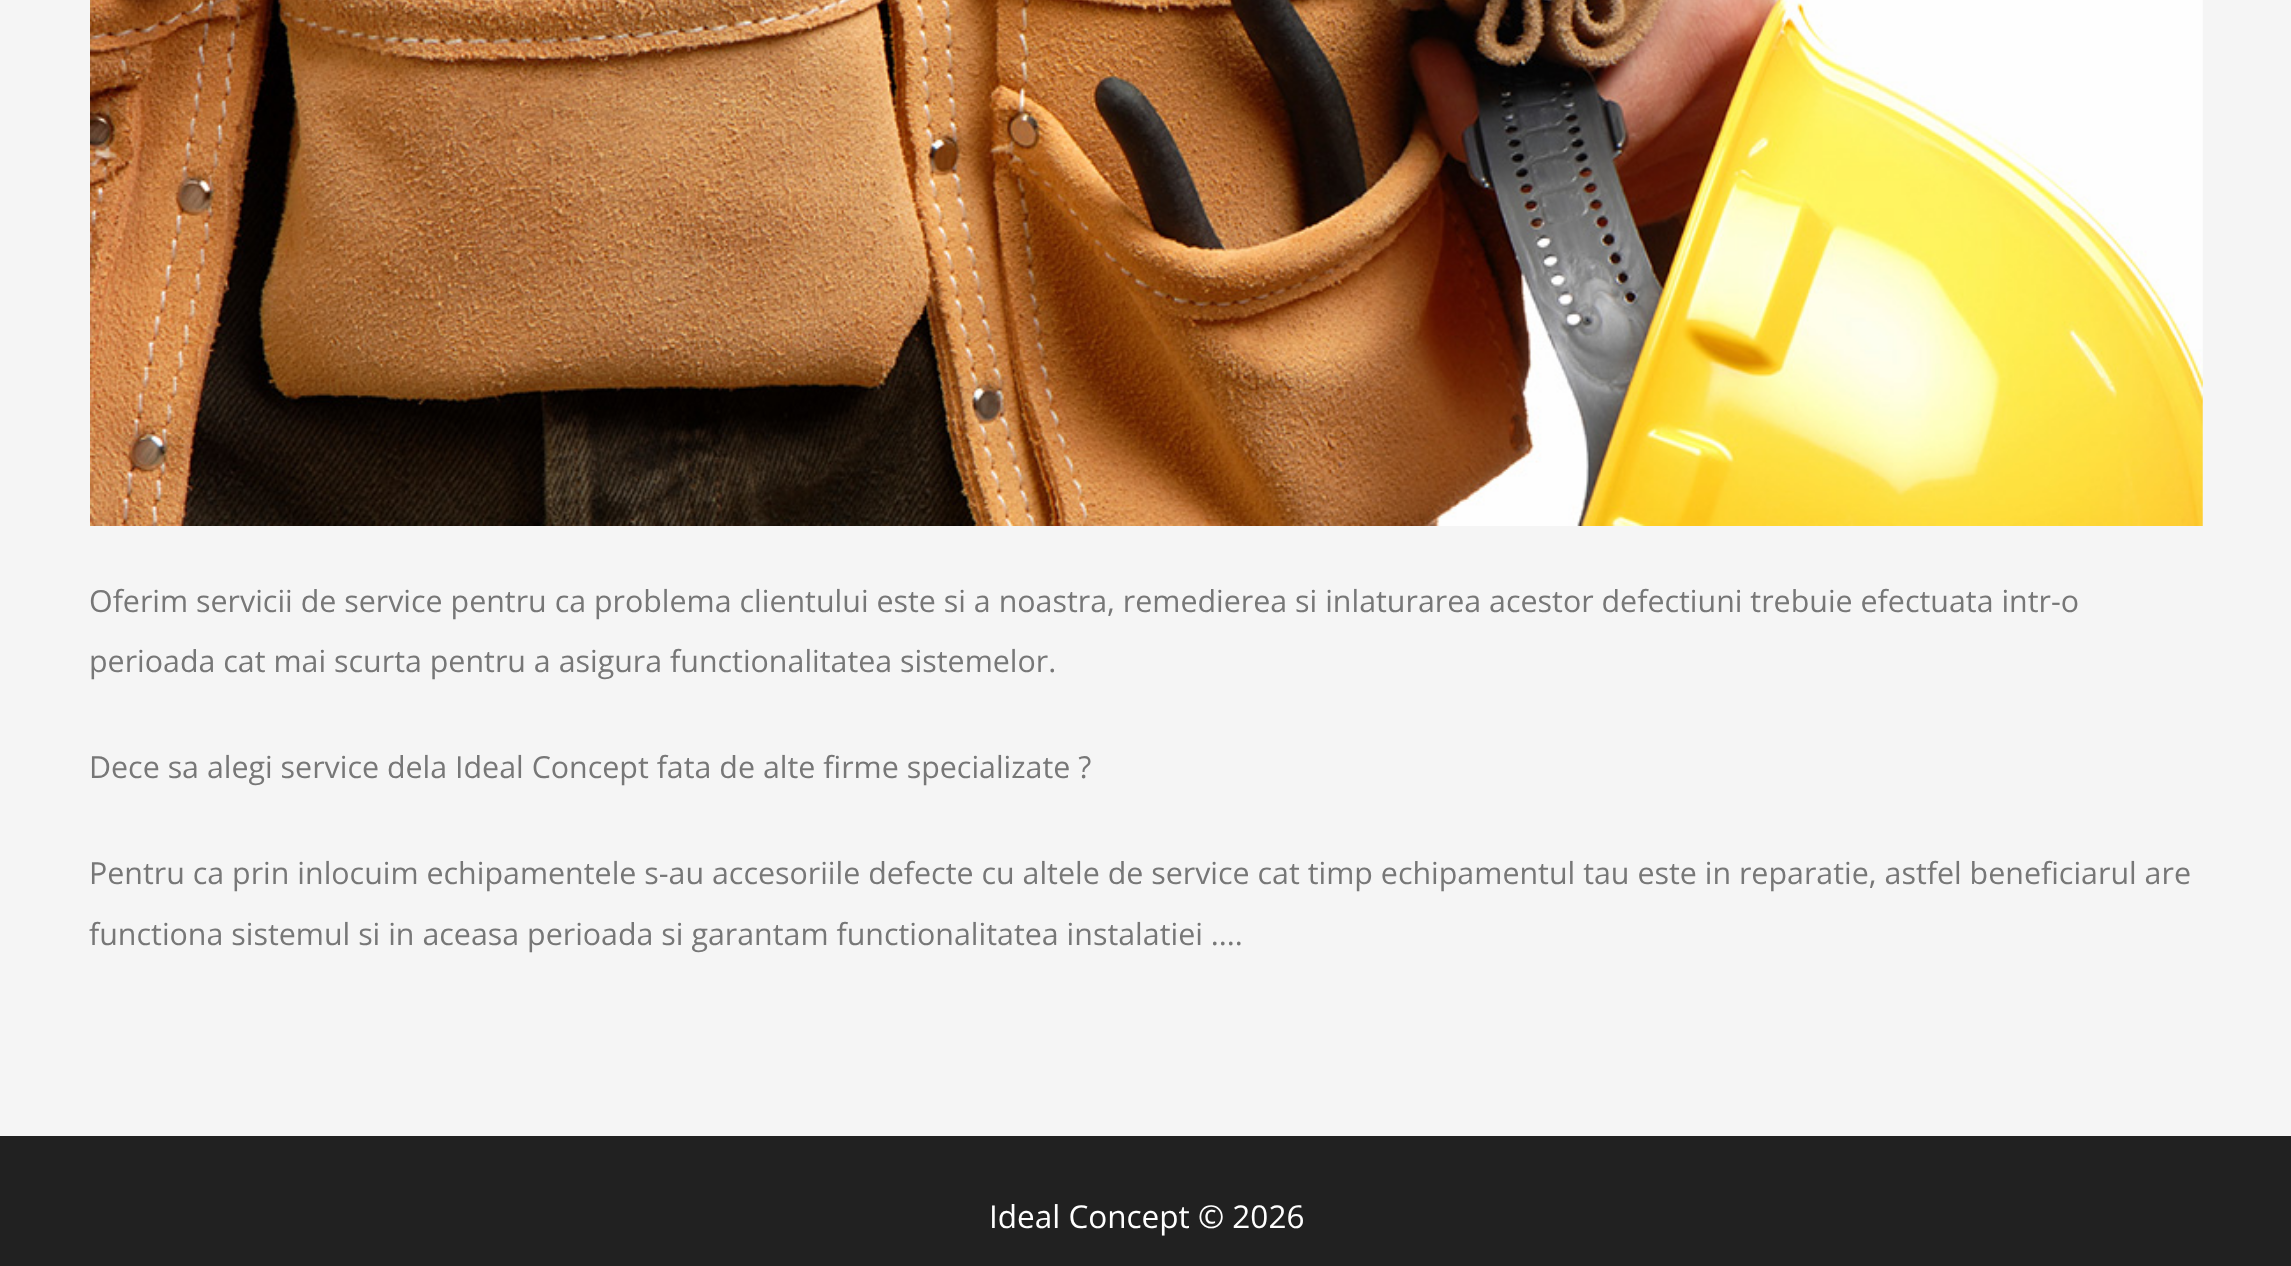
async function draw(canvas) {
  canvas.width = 2291;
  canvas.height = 1266;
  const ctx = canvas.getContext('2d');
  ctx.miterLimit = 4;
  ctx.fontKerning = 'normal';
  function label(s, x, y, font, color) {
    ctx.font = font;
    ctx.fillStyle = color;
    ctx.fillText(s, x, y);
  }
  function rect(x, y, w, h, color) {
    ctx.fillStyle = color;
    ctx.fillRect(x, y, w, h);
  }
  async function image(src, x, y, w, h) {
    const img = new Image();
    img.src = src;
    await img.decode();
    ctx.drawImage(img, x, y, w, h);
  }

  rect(0, 0, 2291, 1266, '#f5f5f5');
  await image('assets/img1.png', 90, 0, 2113, 526);
  label('Oferim servicii de service pentru ca problema clientului este si a noastra, remedierea si inlaturarea acestor defectiuni trebuie efectuata intr-o', 89, 612, '30.4px Open Sans', '#777');
  label('perioada cat mai scurta pentru a asigura functionalitatea sistemelor.', 89, 672, '30.4px Open Sans', '#777');
  label('Dece sa alegi service dela Ideal Concept fata de alte firme specializate ?', 89, 778, '30.4px Open Sans', '#777');
  label('Pentru ca prin inlocuim echipamentele s-au accesoriile defecte cu altele de service cat timp echipamentul tau este in reparatie, astfel beneficiarul are', 89, 884, '30.4px Open Sans', '#777');
  label('functiona sistemul si in aceasa perioada si garantam functionalitatea instalatiei ....', 89, 945, '30.4px Open Sans', '#777');
  rect(0, 1136, 2291, 130, '#212121');
  label('Ideal Concept © 2026', 989, 1228, '31.5px Open Sans', '#fff');
}

draw(document.querySelector('canvas'));
